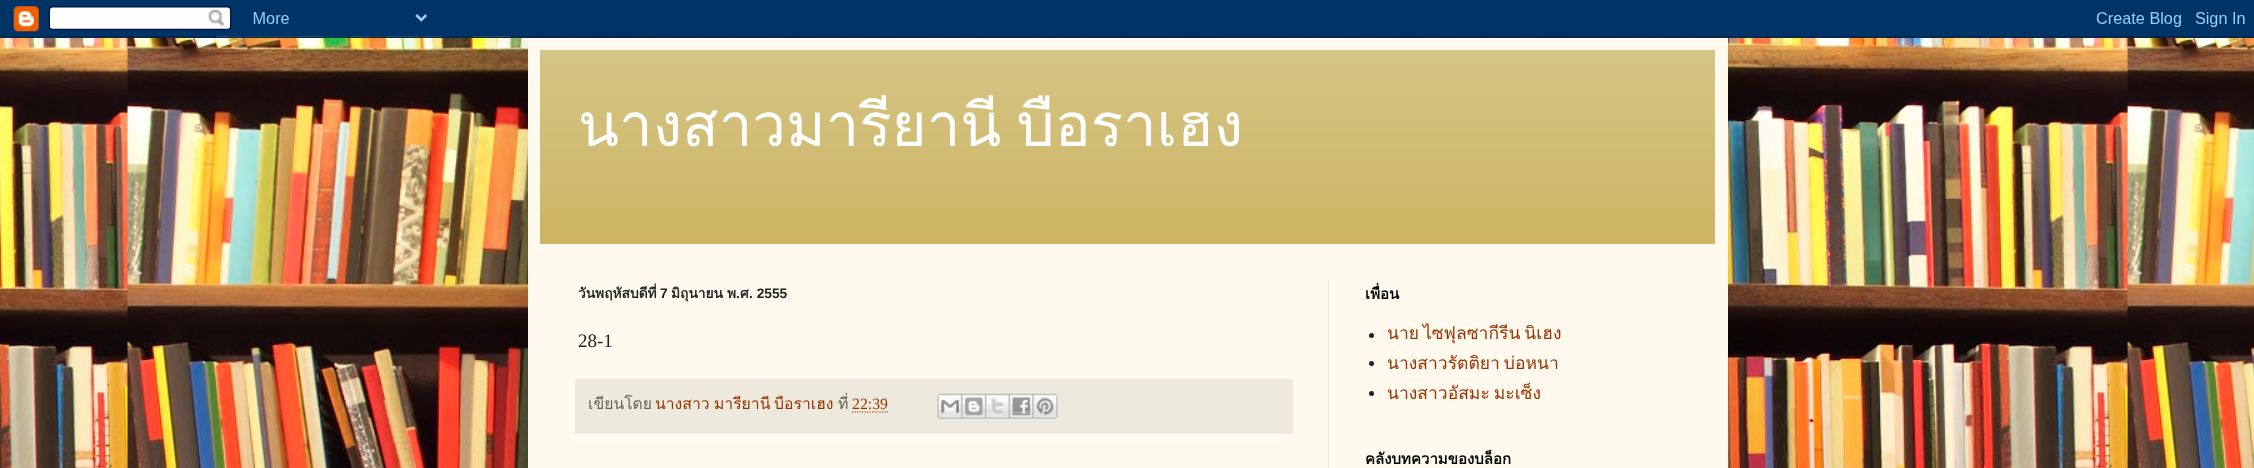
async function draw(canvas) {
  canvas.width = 2254;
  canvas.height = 468;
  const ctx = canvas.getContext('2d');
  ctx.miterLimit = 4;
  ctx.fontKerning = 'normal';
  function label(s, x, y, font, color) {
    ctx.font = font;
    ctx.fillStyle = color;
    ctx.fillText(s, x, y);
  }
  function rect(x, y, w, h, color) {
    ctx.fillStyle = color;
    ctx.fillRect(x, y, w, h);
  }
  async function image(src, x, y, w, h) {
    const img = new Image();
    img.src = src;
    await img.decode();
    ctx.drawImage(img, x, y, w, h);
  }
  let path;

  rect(0, 0, 2254, 468, '#fff');
  await image('assets/img1.png', 0, 36, 2254, 432);
  ctx.fillStyle = '#00000026';
  ctx.filter = 'blur(25px)';
  ctx.beginPath();
  ctx.rect(528, 38, 1200, 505);
  ctx.fill();
  ctx.filter = 'none';
  await image('assets/img2.png', 0, 0, 2254, 38);
  rect(528, 38, 1200, 430, '#fff9ee');
  rect(540, 50, 1175, 194, '#ccb666');
  await image('assets/img3.png', 540, 50, 1175, 163);
  ctx.wordSpacing = '-5px';
  label('นางสาวมารียานี บือราเฮง', 578, 146, '60px Loma', '#fff');
  rect(1328, 281, 1, 187, '#eee5dd');
  ctx.wordSpacing = '0px';
  label('วันพฤหัสบดีที่', 578, 298, 'bold 13.75px Loma', '#222');
  label('7', 660, 298, 'bold 13.75px Liberation Sans', '#222');
  label('มิถุนายน', 671, 298, 'bold 13.75px Loma', '#222');
  label('พ', 727, 298, 'bold 13.75px Loma', '#222');
  label('.', 736, 298, 'bold 13.75px Liberation Sans', '#222');
  label('ศ', 740, 298, 'bold 13.75px Loma', '#222');
  label('. 2555', 749, 298, 'bold 13.75px Liberation Sans', '#222');
  label('28-1', 578, 347, '19px Liberation Serif', '#222');
  rect(575, 379, 718, 54, '#eee9dd');
  rect(575, 433, 718, 1, '#eee');
  label('เขียนโดย', 588, 409, '15.75px Loma', '#666555');
  ctx.wordSpacing = '-1px';
  label('นางสาว มารียานี', 655, 409, '15.75px Loma', '#930');
  ctx.wordSpacing = '0px';
  label('บือราเฮง', 774, 409, '15.75px Loma', '#930');
  label('ที่', 838, 409, '15.75px Loma', '#666555');
  label('22:39', 852, 409, '15.75px Liberation Serif', '#930');
  path = new Path2D('M852 412H888');
  ctx.strokeStyle = '#930';
  ctx.lineWidth = 1.2;
  ctx.setLineDash([1.25, 1.25]);
  ctx.stroke(path);
  await image('assets/img4.png', 937, 393, 26, 26);
  await image('assets/img5.png', 961, 393, 26, 26);
  await image('assets/img6.png', 985, 393, 25, 26);
  await image('assets/img7.png', 1008, 393, 26, 26);
  await image('assets/img8.png', 1032, 393, 26, 26);
  label('เพื่อน', 1365, 299, 'bold 15px Loma', '#000');
  ctx.fillStyle = '#222';
  ctx.beginPath();
  ctx.arc(1371.5, 335.5, 2.5, 0, 2 * Math.PI);
  ctx.fill();
  ctx.wordSpacing = '-2px';
  label('นาย ไซฟุลซากีรีน นิเฮง', 1387, 339, '17.5px Loma', '#930');
  ctx.fillStyle = '#222';
  ctx.beginPath();
  ctx.arc(1371.5, 363.5, 2.5, 0, 2 * Math.PI);
  ctx.fill();
  label('นางสาวรัตติยา บ่อหนา', 1387, 369, '17.5px Loma', '#930');
  ctx.fillStyle = '#222';
  ctx.beginPath();
  ctx.arc(1371.5, 393.5, 2.5, 0, 2 * Math.PI);
  ctx.fill();
  label('นางสาวอัสมะ มะเซ็ง', 1387, 399, '17.5px Loma', '#930');
  ctx.wordSpacing = '0px';
  label('คลังบทความของบล็อก', 1365, 464, 'bold 15px Loma', '#000');
}

draw(document.querySelector('canvas'));
